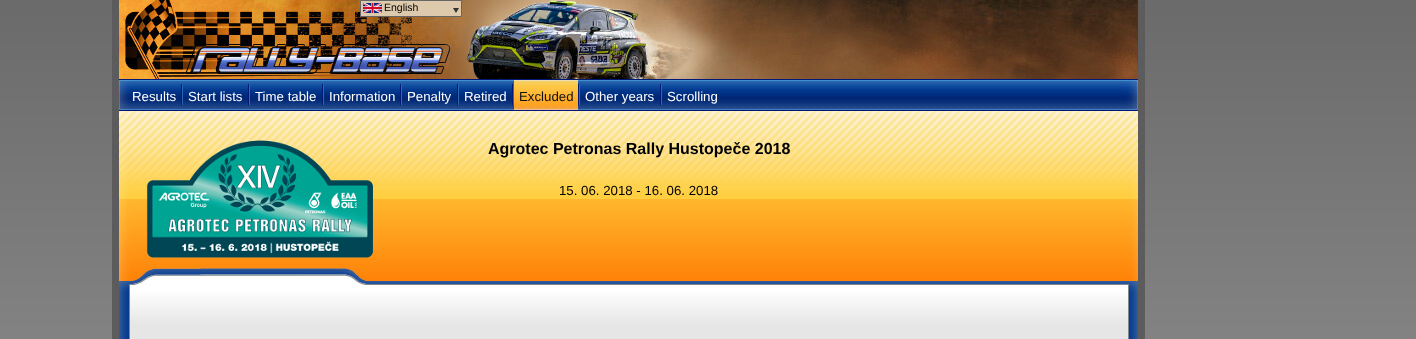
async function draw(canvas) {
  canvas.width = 1416;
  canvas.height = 339;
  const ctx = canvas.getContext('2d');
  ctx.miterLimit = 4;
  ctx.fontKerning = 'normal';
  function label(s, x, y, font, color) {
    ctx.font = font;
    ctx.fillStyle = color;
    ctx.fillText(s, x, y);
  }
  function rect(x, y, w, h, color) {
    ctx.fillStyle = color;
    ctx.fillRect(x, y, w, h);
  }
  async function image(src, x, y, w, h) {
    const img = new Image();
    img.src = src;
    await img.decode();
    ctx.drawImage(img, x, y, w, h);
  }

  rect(0, 0, 1416, 339, '#fff');
  await image('assets/img1.png', 0, 0, 1416, 339);
  await image('assets/img2.png', 112, 0, 1033, 79);
  ctx.fillStyle = '#ddcaac';
  ctx.beginPath();
  ctx.rect(360.5, 0.5, 101, 16);
  ctx.fill();
  ctx.strokeStyle = '#666';
  ctx.stroke();
  await image('assets/img3.png', 363, 3, 19, 10);
  label('English', 384, 11, '10.5px Liberation Sans', '#000');
  await image('assets/img4.png', 453, 8, 6, 5);
  await image('assets/img5.png', 112, 79, 1033, 32);
  label('Results', 132, 101, '13.25px Liberation Sans', '#fff');
  await image('assets/img6.png', 181, 84, 2, 27);
  label('Start lists', 188, 101, '13.25px Liberation Sans', '#fff');
  await image('assets/img6.png', 248, 84, 2, 27);
  label('Time table', 255, 101, '13.25px Liberation Sans', '#fff');
  await image('assets/img6.png', 322, 84, 2, 27);
  label('Information', 329, 101, '13.25px Liberation Sans', '#fff');
  await image('assets/img6.png', 400, 84, 2, 27);
  label('Penalty', 407, 101, '13.25px Liberation Sans', '#fff');
  await image('assets/img6.png', 457, 84, 2, 27);
  label('Retired', 464, 101, '13.25px Liberation Sans', '#fff');
  await image('assets/img6.png', 512, 84, 2, 27);
  await image('assets/img7.png', 514, 80, 64, 30);
  label('Excluded', 519, 101, '13.25px Liberation Sans', '#111');
  await image('assets/img6.png', 578, 84, 2, 27);
  label('Other years', 585, 101, '13.25px Liberation Sans', '#fff');
  await image('assets/img6.png', 660, 84, 2, 27);
  label('Scrolling', 667, 101, '13.25px Liberation Sans', '#fff');
  await image('assets/img8.png', 112, 111, 1033, 174);
  await image('assets/img9.png', 146, 140, 227, 118);
  label('Agrotec Petronas Rally Hustopeče 2018', 488, 154, 'bold 16px Liberation Sans', '#000');
  label('15. 06. 2018 - 16. 06. 2018', 559, 195, '13.25px Liberation Sans', '#000');
  await image('assets/img10.png', 112, 285, 1033, 39);
  await image('assets/img11.png', 112, 324, 1033, 15);
}

draw(document.querySelector('canvas'));
